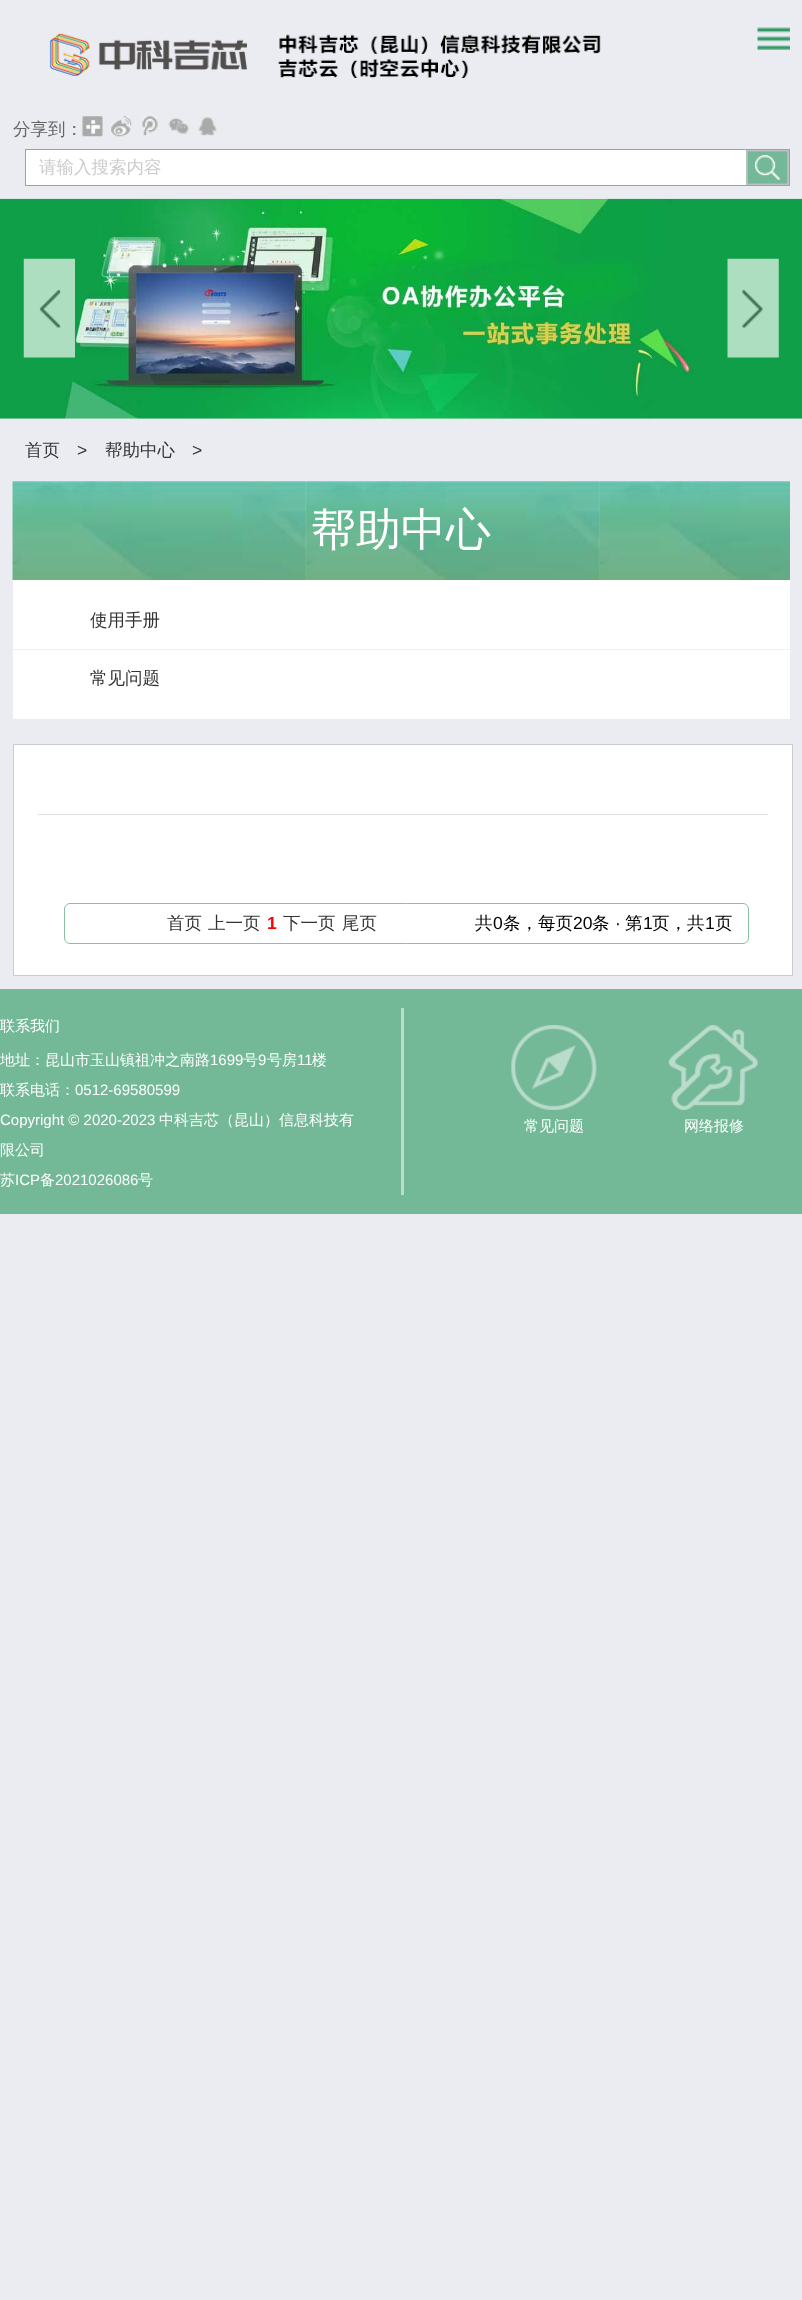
async function draw(canvas) {
  canvas.width = 802;
  canvas.height = 2300;
  const ctx = canvas.getContext('2d');
  ctx.miterLimit = 4;
  ctx.fontKerning = 'normal';
  function label(s, x, y, font, color) {
    ctx.font = font;
    ctx.fillStyle = color;
    ctx.fillText(s, x, y);
  }
  function rect(x, y, w, h, color) {
    ctx.fillStyle = color;
    ctx.fillRect(x, y, w, h);
  }
  async function image(src, x, y, w, h) {
    const img = new Image();
    img.src = src;
    await img.decode();
    ctx.drawImage(img, x, y, w, h);
  }

  rect(0, 0, 802, 2300, '#eaecf1');
  await image('assets/img1.png', 49, 33, 552, 45);
  await image('assets/img2.png', 757, 27, 33, 23);
  label('分享到：', 13, 135, '500 17.5px WenQuanYi Zen Hei', '#666');
  await image('assets/img3.png', 82, 116, 21, 21);
  await image('assets/img4.png', 111, 116, 21, 21);
  await image('assets/img5.png', 142, 116, 16, 20);
  await image('assets/img6.png', 168, 118, 21, 16);
  await image('assets/img7.png', 198, 117, 19, 19);
  rect(26, 150, 720, 35, '#fff');
  ctx.strokeStyle = '#73b897';
  ctx.strokeRect(25.5, 149.5, 764, 36);
  label('请输入搜索内容', 39, 173, '500 17.5px WenQuanYi Zen Hei', '#ccc');
  rect(746, 150, 43, 35, '#73b897');
  await image('assets/img8.png', 746, 150, 43, 35);
  await image('assets/img9.png', 746, 150, 43, 35);
  await image('assets/img10.png', 0, 198, 802, 221);
  await image('assets/img11.png', 23, 258, 52, 100);
  await image('assets/img12.png', 727, 258, 52, 100);
  label('首页', 25, 456, '500 17.5px WenQuanYi Zen Hei', '#333');
  label('>', 77, 456, '17.5px Liberation Sans', '#333');
  label('帮助中心', 105, 456, '500 17.5px WenQuanYi Zen Hei', '#333');
  label('>', 192, 456, '17.5px Liberation Sans', '#333');
  await image('assets/img13.png', 12, 481, 778, 99);
  label('帮助中心', 311, 545, '500 45px WenQuanYi Zen Hei', '#fff');
  rect(13, 580, 777, 139, '#fff');
  rect(13, 649, 777, 1, '#f0f0f0');
  label('使用手册', 90, 626, '500 17.5px WenQuanYi Zen Hei', '#333');
  label('常见问题', 90, 684, '500 17.5px WenQuanYi Zen Hei', '#333');
  ctx.fillStyle = '#fff';
  ctx.beginPath();
  ctx.rect(13.5, 744.5, 779, 231);
  ctx.fill();
  ctx.strokeStyle = '#cbcbcb';
  ctx.stroke();
  rect(38, 814, 730, 1, '#e0e0e0');
  ctx.beginPath();
  ctx.roundRect(64.5, 903.5, 684, 40, 5.5);
  ctx.strokeStyle = '#88c1a4';
  ctx.stroke();
  label('首页', 167, 929, '500 17.5px WenQuanYi Zen Hei', '#333');
  label('上一页', 208, 929, '500 17.5px WenQuanYi Zen Hei', '#333');
  label('1', 267, 929, 'bold 17.5px Liberation Sans', '#f00');
  label('下一页', 283, 929, '500 17.5px WenQuanYi Zen Hei', '#333');
  label('尾页', 342, 929, '500 17.5px WenQuanYi Zen Hei', '#333');
  label('共', 475, 929, '500 17.5px WenQuanYi Zen Hei', '#000');
  label('0', 493, 929, '17.5px Liberation Sans', '#000');
  label('条，每页', 503, 929, '500 17.5px WenQuanYi Zen Hei', '#000');
  label('20', 573, 929, '17.5px Liberation Sans', '#000');
  label('条', 592, 929, '500 17.5px WenQuanYi Zen Hei', '#000');
  label('·', 615, 929, '17.5px Liberation Sans', '#000');
  label('第', 625, 929, '500 17.5px WenQuanYi Zen Hei', '#000');
  label('1', 643, 929, '17.5px Liberation Sans', '#000');
  label('页，共', 652, 929, '500 17.5px WenQuanYi Zen Hei', '#000');
  label('1', 705, 929, '17.5px Liberation Sans', '#000');
  label('页', 715, 929, '500 17.5px WenQuanYi Zen Hei', '#000');
  rect(0, 989, 802, 225, '#73b897');
  rect(401, 1008, 3, 187, '#b9dccb');
  label('联系我们', 0, 1031, '500 15px WenQuanYi Zen Hei', '#fff');
  label('地址：昆山市玉山镇祖冲之南路', 0, 1065, '500 15px WenQuanYi Zen Hei', '#fff');
  label('1699', 210, 1065, '15px Liberation Sans', '#fff');
  label('号', 243, 1065, '500 15px WenQuanYi Zen Hei', '#fff');
  label('9', 258, 1065, '15px Liberation Sans', '#fff');
  label('号房', 267, 1065, '500 15px WenQuanYi Zen Hei', '#fff');
  label('11', 297, 1065, '15px Liberation Sans', '#fff');
  label('楼', 312, 1065, '500 15px WenQuanYi Zen Hei', '#fff');
  label('联系电话：', 0, 1095, '500 15px WenQuanYi Zen Hei', '#fff');
  label('0512-69580599', 75, 1095, '15px Liberation Sans', '#fff');
  label('Copyright © 2020-2023', 0, 1125, '15px Liberation Sans', '#fff');
  label('中科吉芯（昆山）信息科技有', 159, 1125, '500 15px WenQuanYi Zen Hei', '#fff');
  label('限公司', 0, 1155, '500 15px WenQuanYi Zen Hei', '#fff');
  label('苏', 0, 1185, '500 15px WenQuanYi Zen Hei', '#fff');
  label('ICP', 15, 1185, '15px Liberation Sans', '#fff');
  label('备', 40, 1185, '500 15px WenQuanYi Zen Hei', '#fff');
  label('2021026086', 55, 1185, '15px Liberation Sans', '#fff');
  label('号', 138, 1185, '500 15px WenQuanYi Zen Hei', '#fff');
  await image('assets/img14.png', 511, 1025, 86, 85);
  label('常见问题', 524, 1131, '500 15px WenQuanYi Zen Hei', '#fff');
  await image('assets/img15.png', 668, 1025, 90, 85);
  label('网络报修', 684, 1131, '500 15px WenQuanYi Zen Hei', '#fff');
}

draw(document.querySelector('canvas'));
